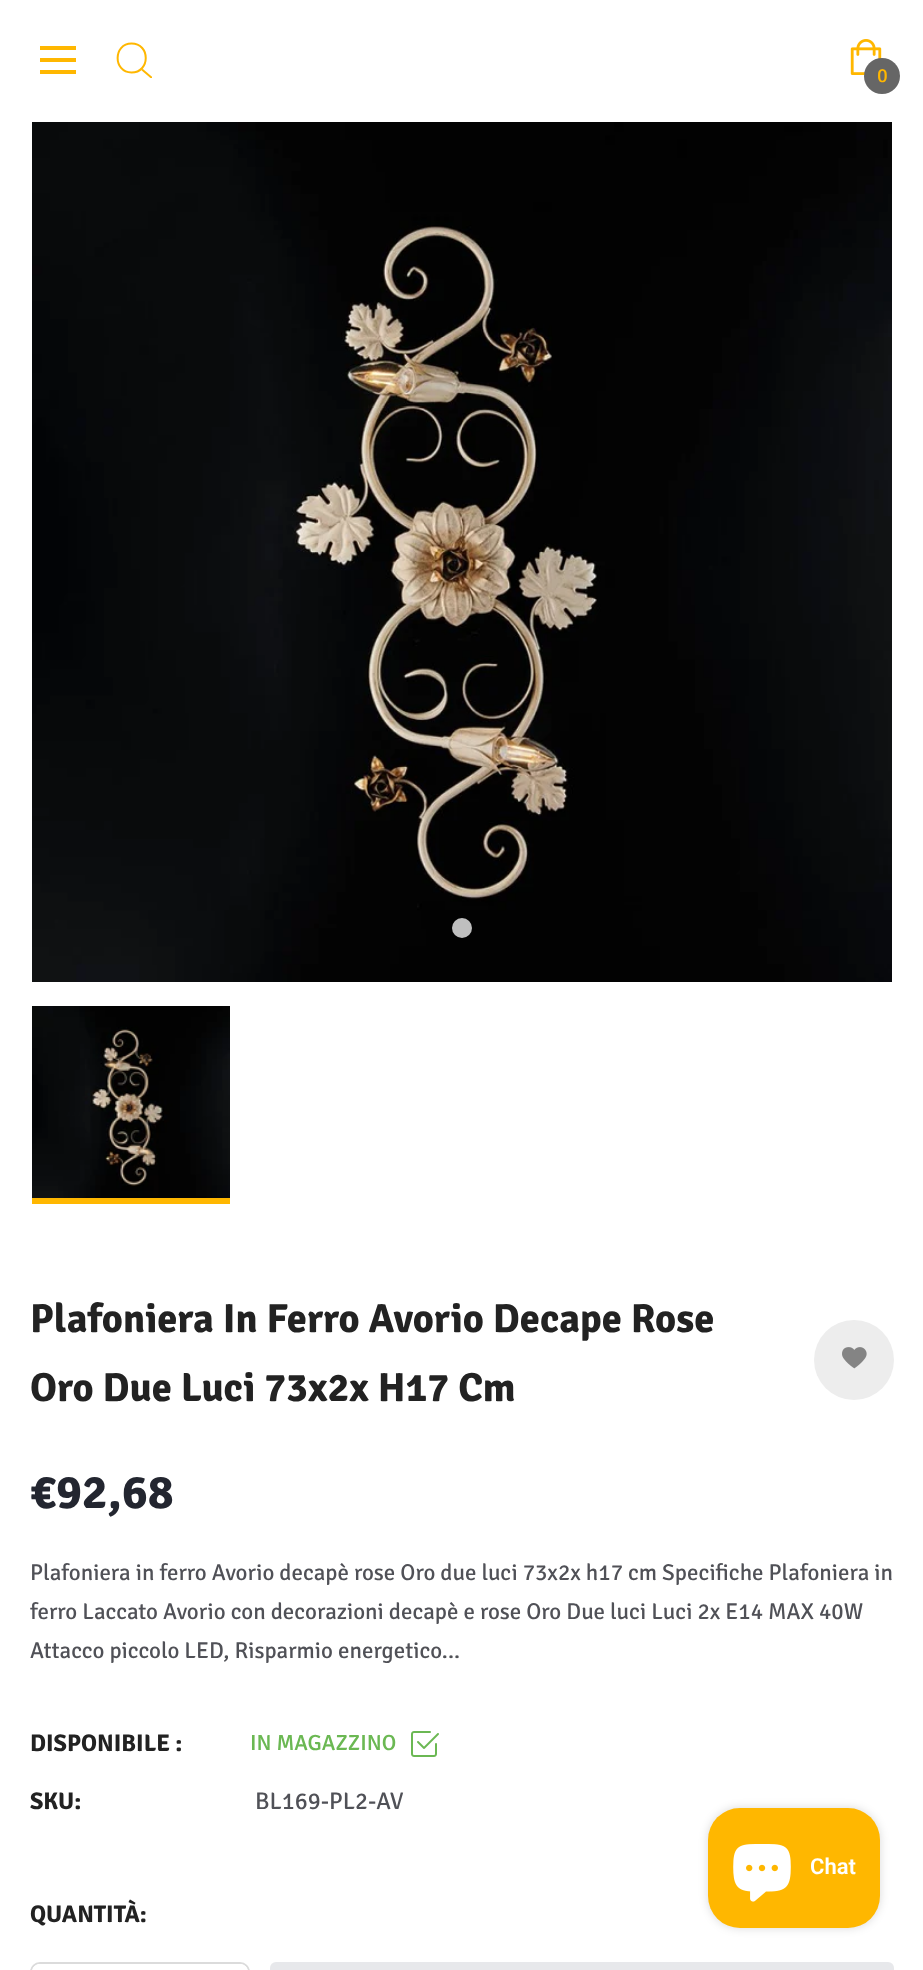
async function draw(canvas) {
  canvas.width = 923;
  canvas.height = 1970;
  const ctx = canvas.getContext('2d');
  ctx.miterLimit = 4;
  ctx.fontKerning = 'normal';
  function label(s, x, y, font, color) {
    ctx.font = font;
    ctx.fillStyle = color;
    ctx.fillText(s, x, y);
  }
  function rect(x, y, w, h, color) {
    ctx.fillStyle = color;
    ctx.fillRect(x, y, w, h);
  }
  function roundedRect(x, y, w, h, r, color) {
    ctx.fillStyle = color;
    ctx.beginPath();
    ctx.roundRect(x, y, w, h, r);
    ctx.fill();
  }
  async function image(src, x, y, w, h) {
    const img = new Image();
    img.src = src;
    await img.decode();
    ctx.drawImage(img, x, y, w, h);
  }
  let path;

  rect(0, 0, 923, 1970, '#fff');
  rect(40, 46, 36, 4, '#ffb700');
  rect(40, 58, 36, 4, '#ffb700');
  rect(40, 70, 36, 4, '#ffb700');
  path = new Path2D('M131.5 72.5C150.5 72.5 150.5 43.5 131.5 43.5C113 43.5 113 72.5 131.5 72.5Z');
  ctx.strokeStyle = '#ffb700';
  ctx.lineWidth = 2;
  ctx.stroke(path);
  ctx.save();
  ctx.beginPath();
  ctx.rect(116, 42, 36, 36);
  ctx.clip();
  path = new Path2D('M152 78L142 69.5');
  ctx.stroke(path);
  ctx.restore();
  await image('assets/img1.png', 850, 39, 32, 36);
  ctx.fillStyle = '#666';
  ctx.beginPath();
  ctx.arc(882, 76, 18, 0, 2 * Math.PI);
  ctx.fill();
  label('0', 877, 82, '20px Signika', '#ffb700');
  await image('assets/img2.png', 32, 122, 860, 860);
  ctx.fillStyle = '#bfbfbf';
  ctx.beginPath();
  ctx.arc(462, 928, 10, 0, 2 * Math.PI);
  ctx.fill();
  await image('assets/img3.png', 32, 1006, 198, 192);
  rect(32, 1198, 198, 6, '#ffb700');
  label('Plafoniera In Ferro Avorio Decape Rose', 30, 1332, 'bold 40.5px Signika', '#222');
  label('Oro Due Luci 73x2x H17 Cm', 30, 1401, 'bold 40.5px Signika', '#222');
  ctx.fillStyle = '#ededed';
  ctx.beginPath();
  ctx.arc(854, 1360, 40, 0, 2 * Math.PI);
  ctx.fill();
  await image('assets/img4.png', 842, 1347, 25, 22);
  label('€92,68', 30, 1508, 'bold 48px Signika', '#232630');
  label('Plafoniera in ferro Avorio decapè rose Oro due luci 73x2x h17 cm Specifiche Plafoniera in', 30, 1580, '22.9px Signika', '#505157');
  label('ferro Laccato Avorio con decorazioni decapè e rose Oro Due luci Luci 2x E14 MAX 40W', 30, 1619, '22.9px Signika', '#505157');
  label('Attacco piccolo LED, Risparmio energetico...', 30, 1658, '22.9px Signika', '#505157');
  label('DISPONIBILE :', 30, 1751, 'bold 24px Signika', '#222');
  label('IN MAGAZZINO', 250, 1750, '500 22px Signika', '#6bb853');
  await image('assets/img5.png', 411, 1731, 28, 26);
  label('SKU:', 30, 1809, 'bold 24px Signika', '#222');
  label('BL169-PL2-AV', 255, 1809, '24px Signika', '#505157');
  label('QUANTITÀ:', 30, 1922, 'bold 24px Signika', '#222');
  ctx.beginPath();
  ctx.roundRect(31, 1963, 218, 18, 9);
  ctx.strokeStyle = '#dbdbdb';
  ctx.stroke();
  ctx.fillStyle = '#fff';
  path = new Path2D('M40 1964H84V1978H40C35.5 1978 32 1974.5 32 1970V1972C32 1967.5 35.5 1964 40 1964Z');
  ctx.fill(path);
  path = new Path2D('M196 1964H240C244.5 1964 248 1967.5 248 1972V1970C248 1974.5 244.5 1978 240 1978H196Z');
  ctx.fill(path);
  roundedRect(270, 1962, 624, 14, 6, '#e7e8eb');
  ctx.fillStyle = '#00000026';
  ctx.filter = 'blur(5px)';
  ctx.beginPath();
  ctx.roundRect(708, 1808, 172, 120, 32);
  ctx.fill();
  ctx.filter = 'none';
  roundedRect(708, 1808, 172, 120, 32, '#ffb700');
  await image('assets/img6.png', 733, 1844, 58, 58);
  label('Chat', 810, 1874, '600 22px Roboto', '#fff');
}

draw(document.querySelector('canvas'));
